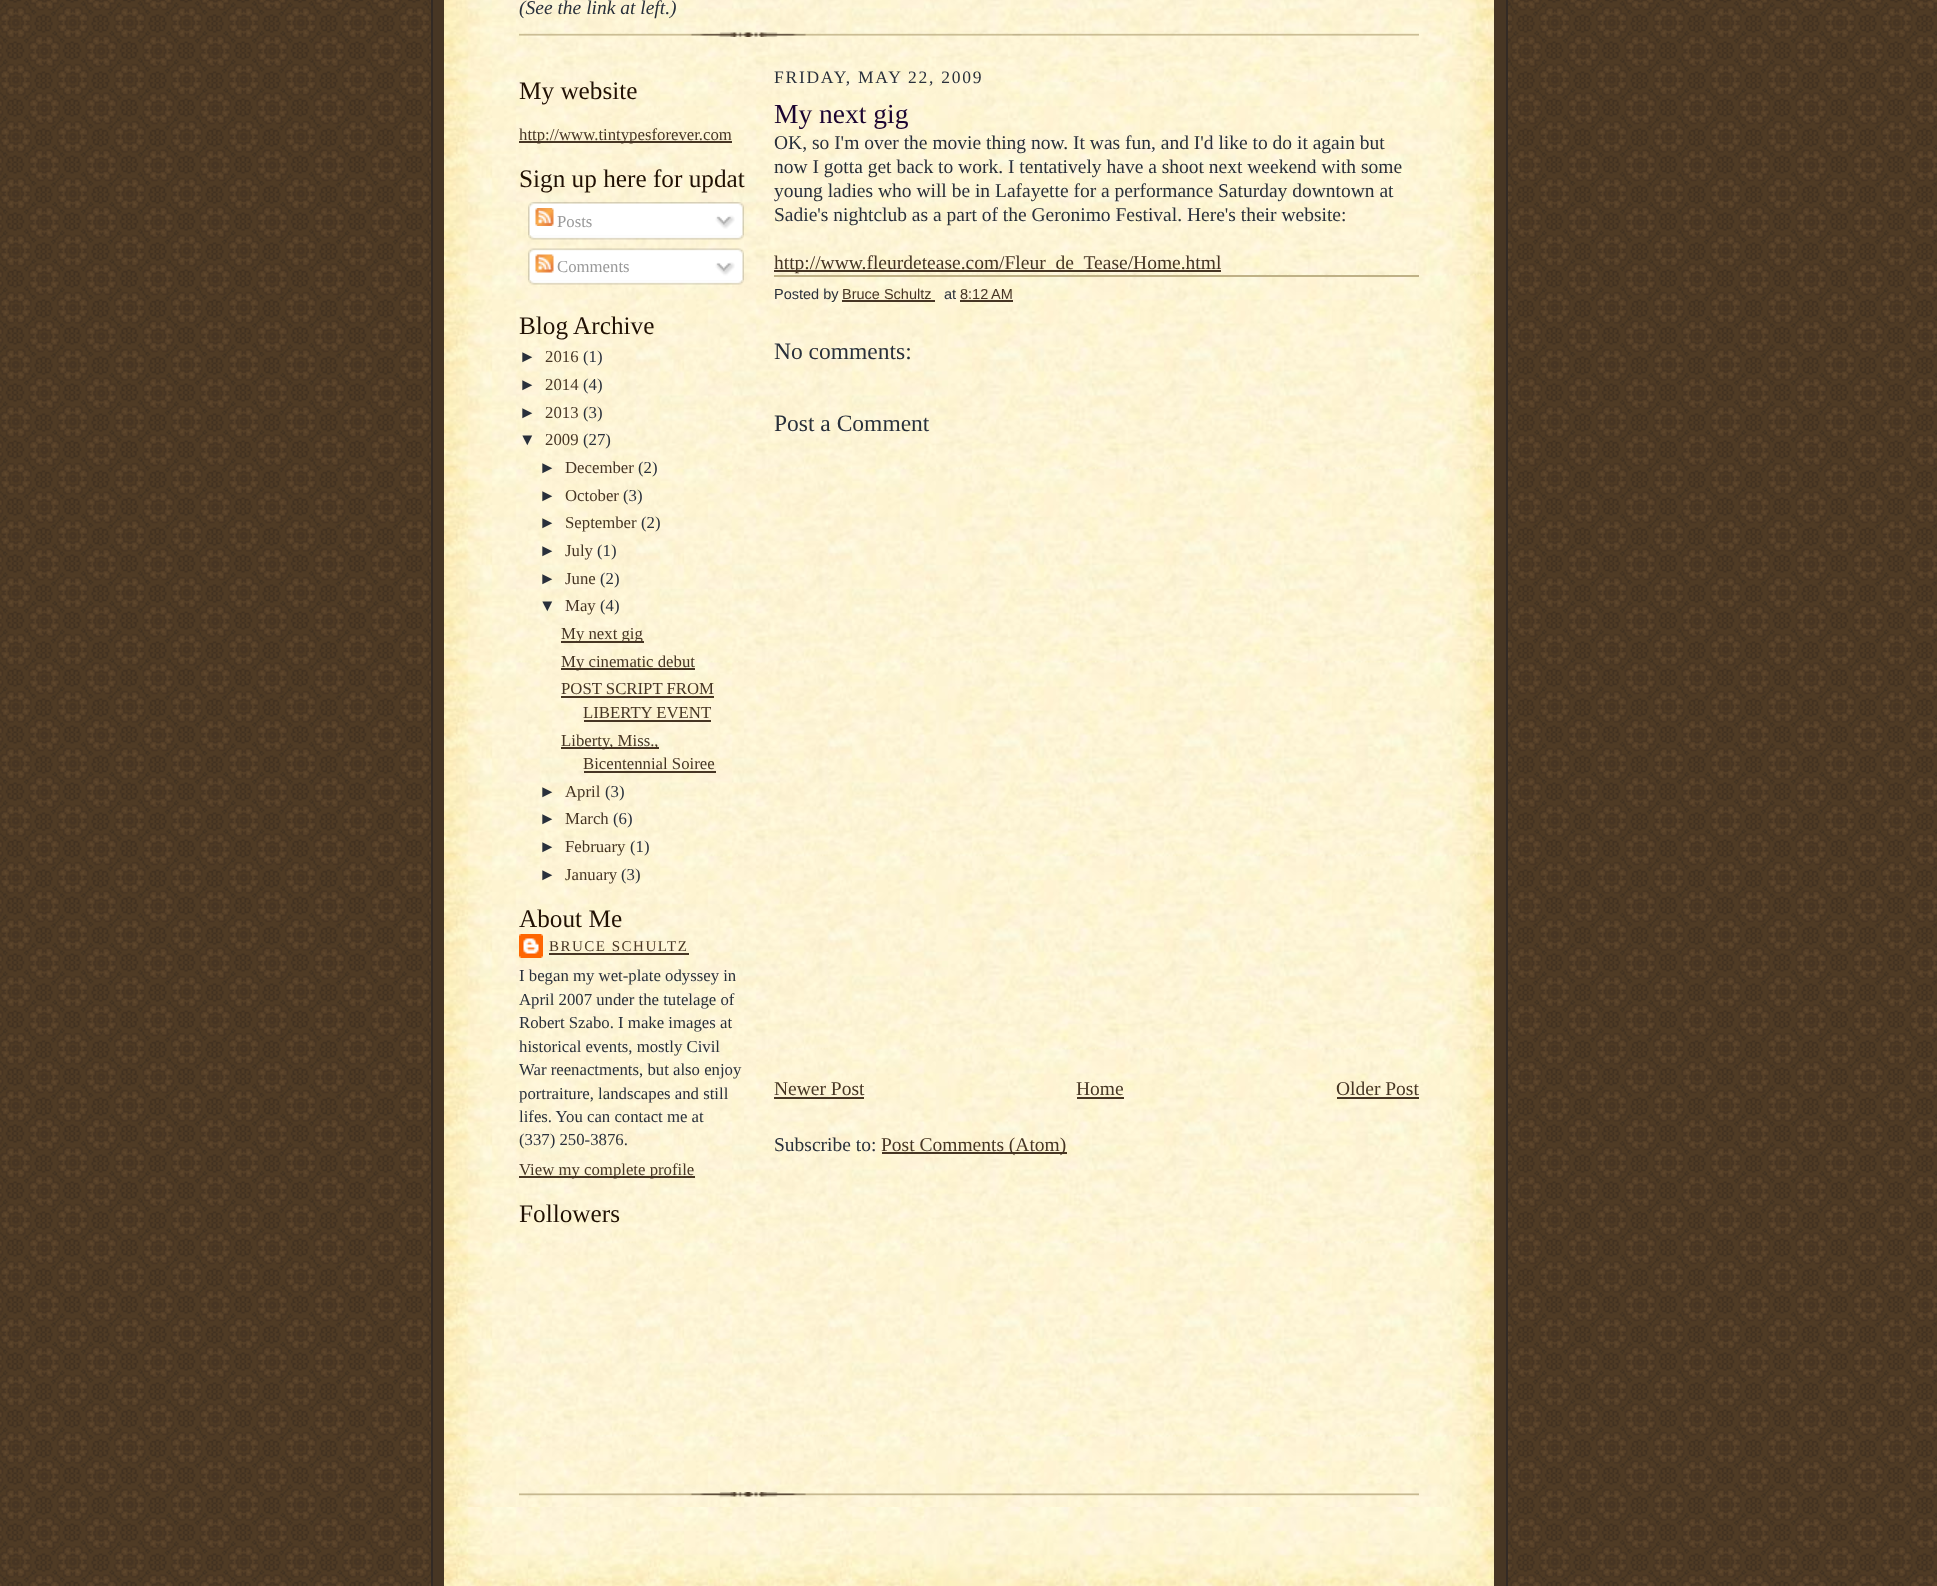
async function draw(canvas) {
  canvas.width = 1937;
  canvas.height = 1586;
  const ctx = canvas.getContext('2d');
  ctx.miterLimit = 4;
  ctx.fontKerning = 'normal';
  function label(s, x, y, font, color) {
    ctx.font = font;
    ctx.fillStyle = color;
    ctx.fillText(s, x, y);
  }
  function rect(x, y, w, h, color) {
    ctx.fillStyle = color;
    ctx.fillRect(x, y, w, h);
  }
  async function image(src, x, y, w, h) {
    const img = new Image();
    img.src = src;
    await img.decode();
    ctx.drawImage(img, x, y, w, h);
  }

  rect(0, 0, 1937, 1586, '#fff');
  await image('assets/img1.png', 0, 0, 1937, 1586);
  rect(433, 0, 1073, 1586, '#473624');
  rect(1506, 0, 2, 1586, '#332a24');
  rect(431, 0, 2, 1586, '#332a24');
  await image('assets/img2.png', 444, 0, 1050, 1507);
  await image('assets/img3.png', 519, 32, 900, 5);
  label('(See the link at left.)', 519, 14, 'italic 19.5px Liberation Serif', '#29303b');
  label('My website', 519, 99, '25.25px Liberation Serif', '#211104');
  rect(519, 141, 213, 2, '#473624');
  label('http://www.tintypesforever.com', 519, 140, '16.75px Liberation Serif', '#473624');
  label('Sign up here for updat', 519, 187, '25.25px Liberation Serif', '#211104');
  await image('assets/img4.png', 528, 202, 216, 33);
  await image('assets/img5.png', 535, 208, 19, 18);
  label('Posts', 557, 227, '16.75px Liberation Serif', '#999');
  await image('assets/img6.png', 715, 215, 20, 14);
  await image('assets/img7.png', 528, 235, 216, 5);
  await image('assets/img8.png', 528, 248, 216, 32);
  await image('assets/img9.png', 535, 254, 19, 19);
  label('Comments', 557, 272, '16.75px Liberation Serif', '#999');
  await image('assets/img10.png', 715, 262, 20, 14);
  await image('assets/img11.png', 528, 280, 216, 5);
  label('Blog Archive', 519, 334, '25.25px Liberation Serif', '#211104');
  label('►', 519, 362, '16.75px Liberation Sans', '#29303b');
  label('2016', 545, 362, '16.75px Liberation Serif', '#473624');
  label('(1)', 583, 362, '16.75px Liberation Serif', '#29303b');
  label('►', 519, 390, '16.75px Liberation Sans', '#29303b');
  label('2014', 545, 390, '16.75px Liberation Serif', '#473624');
  label('(4)', 583, 390, '16.75px Liberation Serif', '#29303b');
  label('►', 519, 418, '16.75px Liberation Sans', '#29303b');
  label('2013', 545, 418, '16.75px Liberation Serif', '#473624');
  label('(3)', 583, 418, '16.75px Liberation Serif', '#29303b');
  label('▼', 519, 445, '16.75px Liberation Sans', '#29303b');
  label('2009', 545, 445, '16.75px Liberation Serif', '#473624');
  label('(27)', 583, 445, '16.75px Liberation Serif', '#29303b');
  label('►', 539, 473, '16.75px Liberation Sans', '#29303b');
  label('December', 565, 473, '16.75px Liberation Serif', '#473624');
  label('(2)', 638, 473, '16.75px Liberation Serif', '#29303b');
  label('►', 539, 501, '16.75px Liberation Sans', '#29303b');
  label('October', 565, 501, '16.75px Liberation Serif', '#473624');
  label('(3)', 623, 501, '16.75px Liberation Serif', '#29303b');
  label('►', 539, 528, '16.75px Liberation Sans', '#29303b');
  label('September', 565, 528, '16.75px Liberation Serif', '#473624');
  label('(2)', 641, 528, '16.75px Liberation Serif', '#29303b');
  label('►', 539, 556, '16.75px Liberation Sans', '#29303b');
  label('July', 565, 556, '16.75px Liberation Serif', '#473624');
  label('(1)', 597, 556, '16.75px Liberation Serif', '#29303b');
  label('►', 539, 584, '16.75px Liberation Sans', '#29303b');
  label('June', 565, 584, '16.75px Liberation Serif', '#473624');
  label('(2)', 600, 584, '16.75px Liberation Serif', '#29303b');
  label('▼', 539, 611, '16.75px Liberation Sans', '#29303b');
  label('May', 565, 611, '16.75px Liberation Serif', '#473624');
  label('(4)', 600, 611, '16.75px Liberation Serif', '#29303b');
  rect(561, 641, 83, 2, '#473624');
  label('My next gig', 561, 639, '16.75px Liberation Serif', '#473624');
  rect(561, 668, 134, 2, '#473624');
  label('My cinematic debut', 561, 667, '16.75px Liberation Serif', '#473624');
  label('POST SCRIPT FROM', 561, 694, '16.75px Liberation Serif', '#473624');
  rect(561, 696, 153, 2, '#473624');
  label('LIBERTY EVENT', 583, 718, '16.75px Liberation Serif', '#473624');
  rect(584, 720, 127, 2, '#473624');
  rect(561, 747, 98, 2, '#473624');
  label('Liberty, Miss.,', 561, 746, '16.75px Liberation Serif', '#473624');
  label('Bicentennial Soiree', 583, 769, '16.75px Liberation Serif', '#473624');
  rect(584, 771, 132, 2, '#473624');
  label('►', 539, 797, '16.75px Liberation Sans', '#29303b');
  label('April', 565, 797, '16.75px Liberation Serif', '#473624');
  label('(3)', 605, 797, '16.75px Liberation Serif', '#29303b');
  label('►', 539, 824, '16.75px Liberation Sans', '#29303b');
  label('March', 565, 824, '16.75px Liberation Serif', '#473624');
  label('(6)', 613, 824, '16.75px Liberation Serif', '#29303b');
  label('►', 539, 852, '16.75px Liberation Sans', '#29303b');
  label('February', 565, 852, '16.75px Liberation Serif', '#473624');
  label('(1)', 630, 852, '16.75px Liberation Serif', '#29303b');
  label('►', 539, 880, '16.75px Liberation Sans', '#29303b');
  label('January', 565, 880, '16.75px Liberation Serif', '#473624');
  label('(3)', 621, 880, '16.75px Liberation Serif', '#29303b');
  label('About Me', 519, 927, '25.25px Liberation Serif', '#211104');
  await image('assets/img12.png', 519, 934, 24, 24);
  ctx.letterSpacing = '1.5px';
  label('BRUCE SCHULTZ', 549, 951, '15px Liberation Serif', '#473624');
  rect(549, 953, 140, 2, '#473624');
  ctx.letterSpacing = '0px';
  label('I began my wet-plate odyssey in', 519, 981, '16.75px Liberation Serif', '#29303b');
  label('April 2007 under the tutelage of', 519, 1005, '16.75px Liberation Serif', '#29303b');
  label('Robert Szabo. I make images at', 519, 1028, '16.75px Liberation Serif', '#29303b');
  label('historical events, mostly Civil', 519, 1052, '16.75px Liberation Serif', '#29303b');
  label('War reenactments, but also enjoy', 519, 1075, '16.75px Liberation Serif', '#29303b');
  label('portraiture, landscapes and still', 519, 1099, '16.75px Liberation Serif', '#29303b');
  label('lifes. You can contact me at', 519, 1122, '16.75px Liberation Serif', '#29303b');
  label('(337) 250-3876.', 519, 1145, '16.75px Liberation Serif', '#29303b');
  rect(519, 1176, 176, 2, '#473624');
  label('View my complete profile', 519, 1175, '16.75px Liberation Serif', '#473624');
  label('Followers', 519, 1222, '25.25px Liberation Serif', '#211104');
  ctx.letterSpacing = '1.75px';
  label('FRIDAY, MAY 22, 2009', 774, 83, '17.5px Liberation Serif', '#29303b');
  ctx.letterSpacing = '0px';
  label('My next gig', 774, 123, '27.5px Liberation Serif', '#1b0431');
  label('OK, so I\'m over the movie thing now. It was fun, and I\'d like to do it again but', 774, 149, '19.5px Liberation Serif', '#29303b');
  label('now I gotta get back to work. I tentatively have a shoot next weekend with some', 774, 173, '19.5px Liberation Serif', '#29303b');
  label('young ladies who will be in Lafayette for a performance Saturday downtown at', 774, 197, '19.5px Liberation Serif', '#29303b');
  label('Sadie\'s nightclub as a part of the Geronimo Festival. Here\'s their website:', 774, 221, '19.5px Liberation Serif', '#29303b');
  rect(774, 270, 447, 2, '#473624');
  label('http://www.fleurdetease.com/Fleur_de_Tease/Home.html', 774, 269, '19.5px Liberation Serif', '#473624');
  rect(774, 275, 645, 2, '#bfb186');
  label('Posted by', 774, 299, '14.5px Liberation Sans', '#29303b');
  label('Bruce Schultz', 842, 299, '14.5px Liberation Sans', '#473624');
  rect(842, 300, 93, 2, '#473624');
  label('at', 944, 299, '14.5px Liberation Sans', '#29303b');
  label('8:12 AM', 960, 299, '14.5px Liberation Sans', '#473624');
  rect(960, 300, 53, 2, '#473624');
  label('No comments:', 774, 359, '23.5px Liberation Serif', '#29303b');
  label('Post a Comment', 774, 431, '23.5px Liberation Serif', '#29303b');
  label('Newer Post', 774, 1095, '19.5px Liberation Serif', '#473624');
  rect(774, 1097, 90, 2, '#473624');
  label('Home', 1076, 1095, '19.5px Liberation Serif', '#473624');
  rect(1077, 1097, 47, 2, '#473624');
  label('Older Post', 1336, 1095, '19.5px Liberation Serif', '#473624');
  rect(1337, 1097, 82, 2, '#473624');
  label('Subscribe to:', 774, 1151, '19.5px Liberation Serif', '#29303b');
  rect(882, 1152, 185, 2, '#473624');
  label('Post Comments (Atom)', 881, 1151, '19.5px Liberation Serif', '#473624');
  await image('assets/img13.png', 519, 1492, 900, 5);
  await image('assets/img14.png', 444, 1507, 1050, 79);
}

draw(document.querySelector('canvas'));
